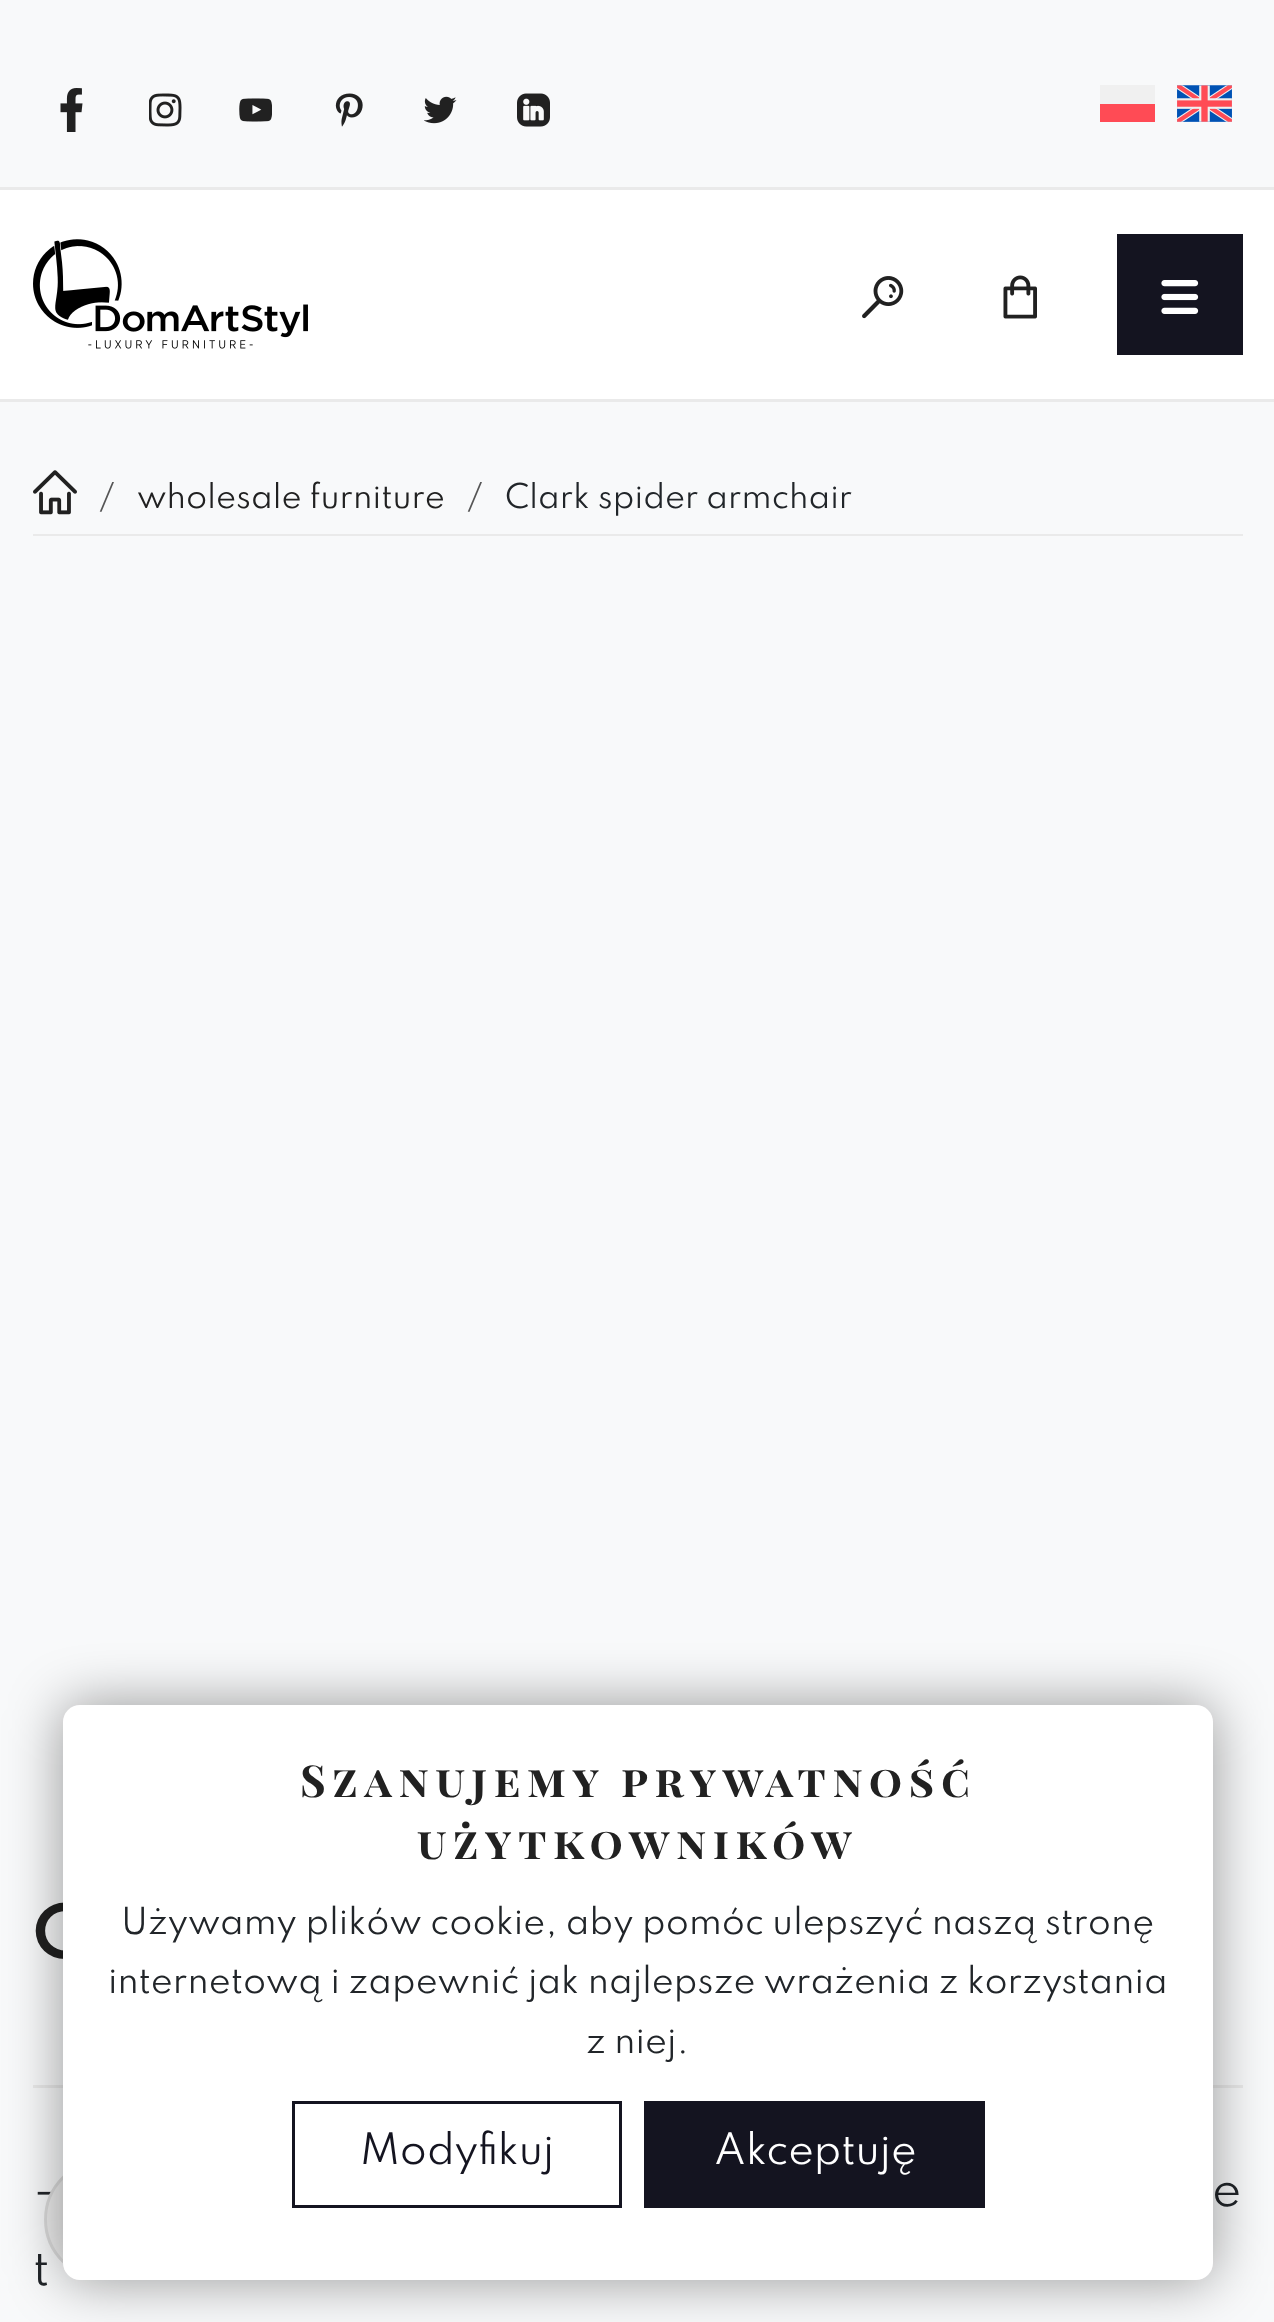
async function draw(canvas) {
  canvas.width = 1274;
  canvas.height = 2322;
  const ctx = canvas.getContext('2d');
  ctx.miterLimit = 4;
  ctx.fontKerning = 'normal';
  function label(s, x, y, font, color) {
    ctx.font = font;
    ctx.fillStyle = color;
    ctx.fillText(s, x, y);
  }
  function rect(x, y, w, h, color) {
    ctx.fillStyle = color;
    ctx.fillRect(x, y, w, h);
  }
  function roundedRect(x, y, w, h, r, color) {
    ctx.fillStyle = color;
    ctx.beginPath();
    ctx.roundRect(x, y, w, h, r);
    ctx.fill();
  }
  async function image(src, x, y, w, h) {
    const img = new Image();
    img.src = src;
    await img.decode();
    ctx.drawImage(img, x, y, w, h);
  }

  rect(0, 0, 1274, 2322, '#fff');
  rect(0, 399, 1274, 3, '#eaeaea');
  rect(0, 0, 1274, 187, '#f8f9fa');
  rect(0, 187, 1274, 3, '#eaeaea');
  await image('assets/img1.png', 60, 88, 23, 44);
  await image('assets/img2.png', 149, 93, 33, 34);
  await image('assets/img3.png', 239, 98, 33, 24);
  await image('assets/img4.png', 335, 93, 28, 34);
  await image('assets/img5.png', 424, 96, 33, 28);
  await image('assets/img6.png', 517, 93, 33, 34);
  rect(1100, 104, 55, 18, '#ff4b55');
  rect(1100, 85, 55, 19, '#f0f0f0');
  await image('assets/img7.png', 1177, 85, 55, 37);
  await image('assets/img8.png', 33, 239, 275, 110);
  await image('assets/img9.png', 862, 276, 42, 43);
  await image('assets/img10.png', 1003, 275, 34, 44);
  rect(1117, 234, 126, 121, '#141420');
  await image('assets/img11.png', 1161, 280, 38, 34);
  rect(0, 402, 1274, 1920, '#f8f9fa');
  rect(33, 534, 1210, 2, '#eaeaea');
  await image('assets/img12.png', 33, 470, 44, 45);
  label('/', 99, 508, '30.25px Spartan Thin', '#555');
  label('wholesale furniture', 137, 508, '30.25px Spartan Thin', '#212121');
  label('/', 467, 508, '30.25px Spartan Thin', '#555');
  label('Clark spider armchair', 505, 508, '30.25px Spartan Thin', '#212529');
  label('C', 33, 1958, '600 66px Spartan Thin', '#212121');
  rect(33, 2085, 1210, 3, '#eaeaea');
  label('-', 33, 2206, '44px Spartan Thin', '#212529');
  label('e', 1212, 2206, '44px Spartan Thin', '#212529');
  label('t', 33, 2285, '44px Spartan Thin', '#212529');
  ctx.fillStyle = '#eee';
  ctx.beginPath();
  ctx.arc(104.5, 2219.5, 59, 0, 2 * Math.PI);
  ctx.fill();
  ctx.strokeStyle = '#ddd';
  ctx.lineWidth = 3;
  ctx.stroke();
  ctx.fillStyle = '#00000066';
  ctx.filter = 'blur(27.5px)';
  ctx.beginPath();
  ctx.roundRect(63, 1705, 1150, 575, 17);
  ctx.fill();
  ctx.filter = 'none';
  roundedRect(63, 1705, 1150, 575, 17, '#fff');
  ctx.letterSpacing = '6.6px';
  label('Szanujemy prywatność', 300, 1797, 'bold 44px Playfair Display SC', '#212121');
  label('użytkowników', 417, 1859, 'bold 44px Playfair Display SC', '#212121');
  ctx.letterSpacing = '0px';
  label('Używamy plików cookie, aby pomóc ulepszyć naszą stronę', 121, 1934, '33px Spartan Thin', '#212529');
  label('internetową i zapewnić jak najlepsze wrażenia z korzystania', 108, 1993, '33px Spartan Thin', '#212529');
  label('z niej.', 586, 2053, '33px Spartan Thin', '#212529');
  ctx.strokeStyle = '#141420';
  ctx.strokeRect(293.5, 2102.5, 327, 104);
  label('Modyfikuj', 360, 2164, '38.5px Spartan Thin', '#141420');
  rect(644, 2101, 341, 107, '#141420');
  label('Akceptuję', 714, 2164, '38.5px Spartan Thin', '#fff');
}

draw(document.querySelector('canvas'));
